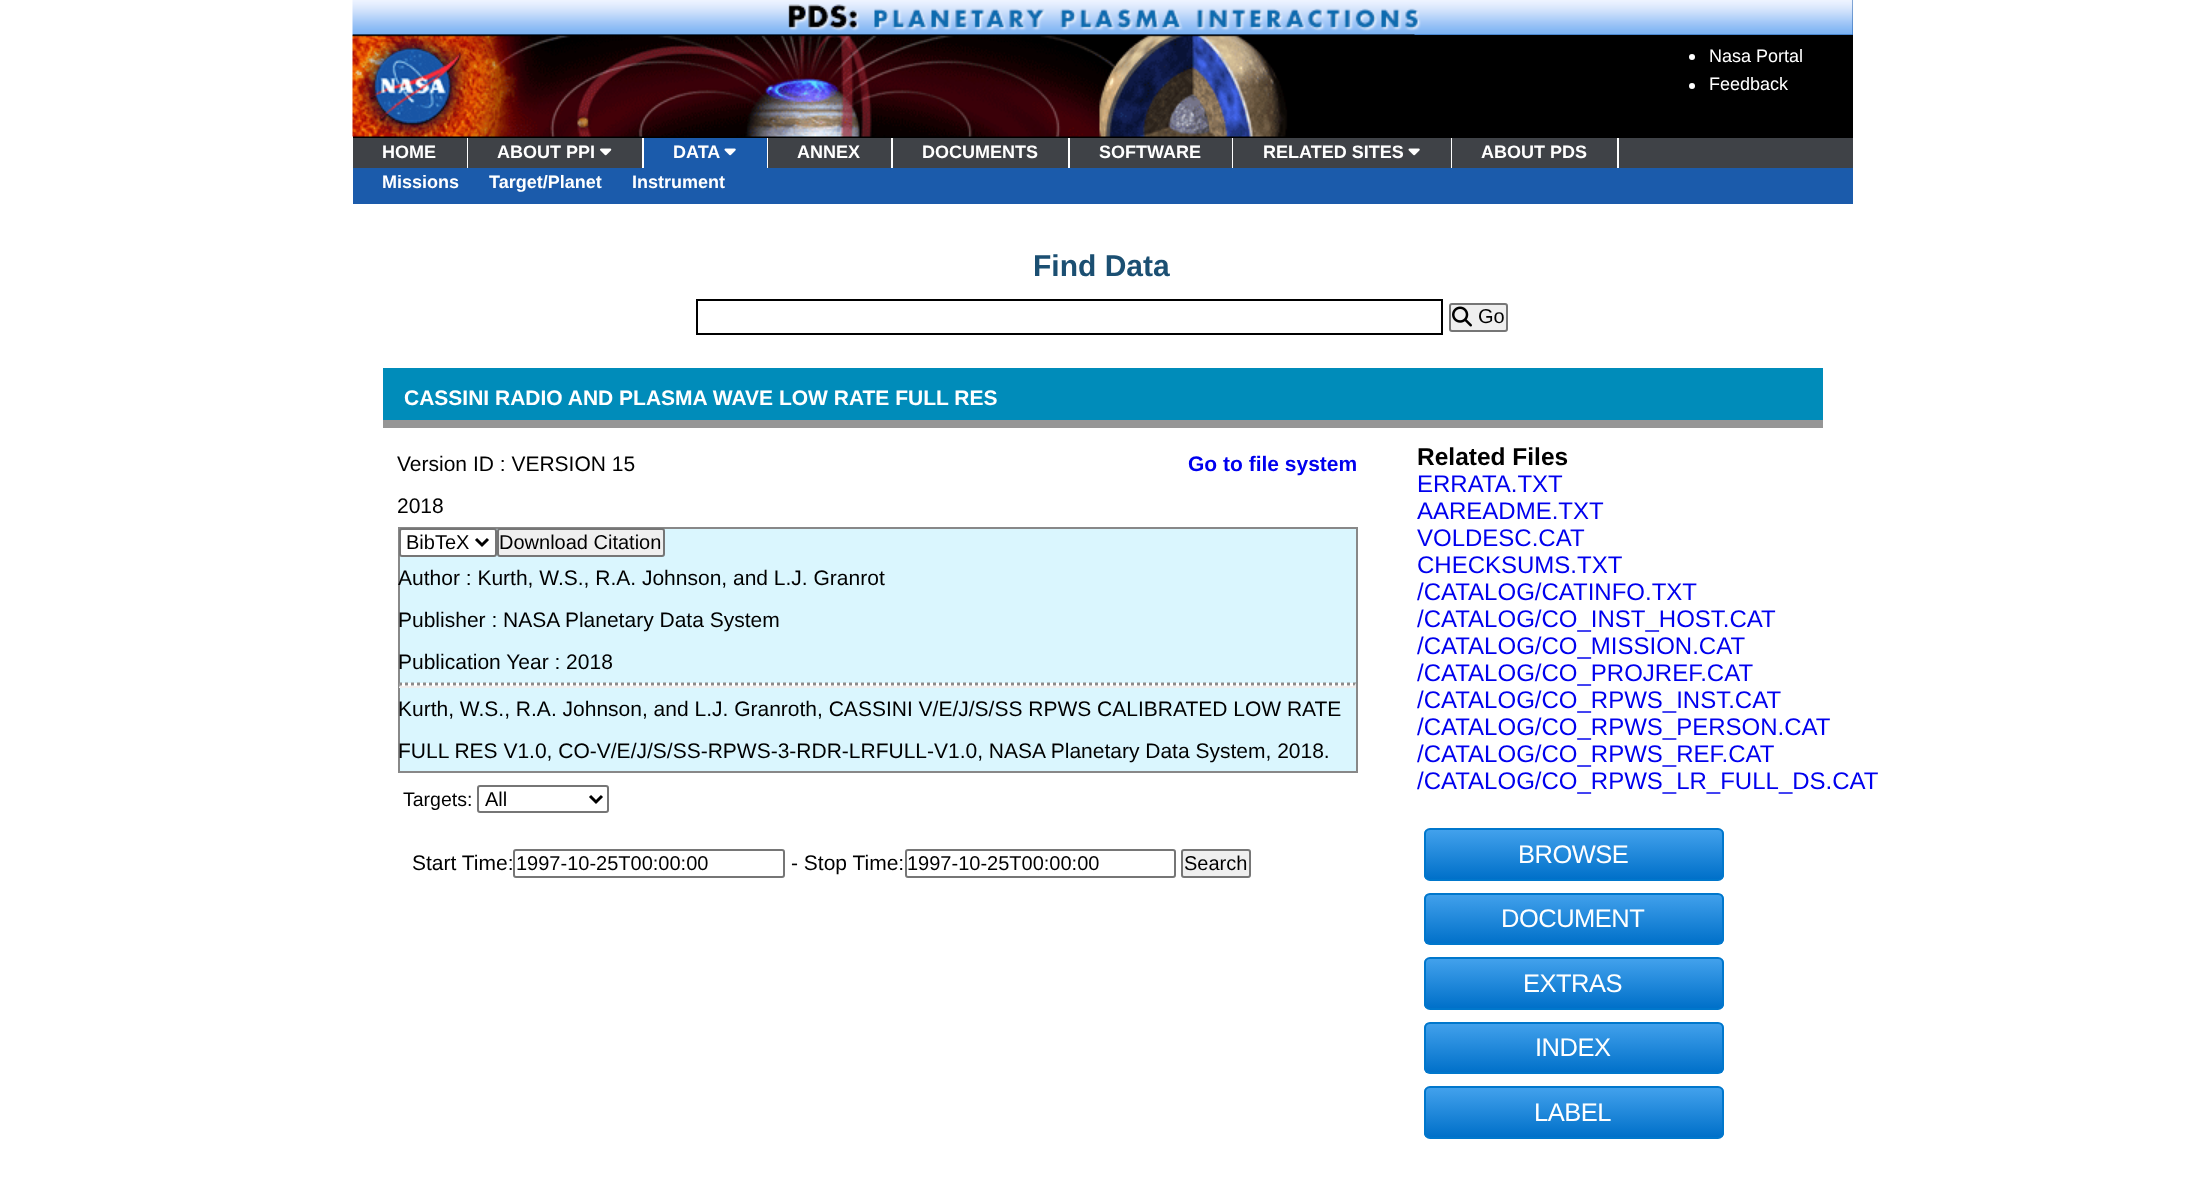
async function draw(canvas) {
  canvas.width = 2203;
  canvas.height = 1191;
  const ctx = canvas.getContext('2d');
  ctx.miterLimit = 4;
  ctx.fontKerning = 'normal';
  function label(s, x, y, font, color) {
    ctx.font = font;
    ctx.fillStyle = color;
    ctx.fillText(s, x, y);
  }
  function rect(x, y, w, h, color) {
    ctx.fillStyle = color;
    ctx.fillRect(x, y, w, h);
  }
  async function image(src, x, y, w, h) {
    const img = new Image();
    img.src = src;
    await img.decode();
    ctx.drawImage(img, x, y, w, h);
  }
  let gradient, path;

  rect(0, 0, 2203, 1191, '#fff');
  rect(353, 0, 1500, 204, '#1b5bab');
  await image('assets/img1.png', 352, 0, 1501, 35);
  rect(353, 35, 1500, 103, '#000');
  await image('assets/img2.png', 352, 34, 1063, 103);
  ctx.fillStyle = '#fff';
  ctx.beginPath();
  ctx.arc(1692, 57, 3, 0, 2 * Math.PI);
  ctx.fill();
  label('Nasa Portal', 1709, 62, '18px Liberation Sans', '#fff');
  ctx.beginPath();
  ctx.arc(1692, 86, 3, 0, 2 * Math.PI);
  ctx.fill();
  label('Feedback', 1709, 90, '18px Liberation Sans', '#fff');
  rect(353, 138, 1500, 30, '#3f4247');
  rect(467, 138, 1, 30, '#fff');
  label('HOME', 382, 158, 'bold 18px Liberation Sans', '#fff');
  rect(642, 138, 2, 30, '#fff');
  label('ABOUT PPI', 497, 158, 'bold 18px Liberation Sans', '#fff');
  await image('assets/img3.png', 600, 148, 12, 8);
  rect(644, 138, 123, 30, '#1b5bab');
  rect(767, 138, 1, 30, '#fff');
  label('DATA', 673, 158, 'bold 18px Liberation Sans', '#fff');
  await image('assets/img4.png', 724, 148, 12, 8);
  rect(891, 138, 2, 30, '#fff');
  label('ANNEX', 797, 158, 'bold 18px Liberation Sans', '#fff');
  rect(1068, 138, 2, 30, '#fff');
  label('DOCUMENTS', 922, 158, 'bold 18px Liberation Sans', '#fff');
  rect(1232, 138, 1, 30, '#fff');
  label('SOFTWARE', 1099, 158, 'bold 18px Liberation Sans', '#fff');
  rect(1451, 138, 1, 30, '#fff');
  label('RELATED SITES', 1263, 158, 'bold 18px Liberation Sans', '#fff');
  await image('assets/img5.png', 1408, 148, 12, 8);
  rect(1617, 138, 2, 30, '#fff');
  label('ABOUT PDS', 1481, 158, 'bold 18px Liberation Sans', '#fff');
  label('Missions', 382, 188, 'bold 18px Liberation Sans', '#fff');
  label('Target/Planet', 489, 188, 'bold 18px Liberation Sans', '#fff');
  label('Instrument', 632, 188, 'bold 18px Liberation Sans', '#fff');
  label('Find Data', 1033, 276, 'bold 30px Liberation Sans', '#1b4f72');
  ctx.strokeStyle = '#000';
  ctx.lineWidth = 2;
  ctx.strokeRect(697, 300, 745, 34);
  ctx.fillStyle = '#efefef';
  ctx.beginPath();
  ctx.roundRect(1450, 304, 57, 27, 2);
  ctx.fill();
  ctx.strokeStyle = '#767676';
  ctx.stroke();
  await image('assets/img6.png', 1452, 306, 20, 21);
  label('Go', 1478, 323, '20px Liberation Sans', '#000');
  rect(383, 368, 1440, 52, '#008cba');
  rect(383, 420, 1440, 8, '#969696');
  label('CASSINI RADIO AND PLASMA WAVE LOW RATE FULL RES', 404, 405, 'bold 21px Liberation Sans', '#fff');
  label('Version ID : VERSION 15', 397, 471, '21px Liberation Sans', '#000');
  label('Go to file system', 1188, 471, 'bold 21px Liberation Sans', '#00e');
  label('2018', 397, 513, '21px Liberation Sans', '#000');
  ctx.fillStyle = '#daf6fe';
  ctx.beginPath();
  ctx.rect(399, 528, 958, 244);
  ctx.fill();
  ctx.strokeStyle = '#888';
  ctx.stroke();
  ctx.fillStyle = '#fff';
  ctx.beginPath();
  ctx.roundRect(400, 529, 96, 27, 2);
  ctx.fill();
  ctx.strokeStyle = '#767676';
  ctx.stroke();
  path = new Path2D('M476 539L482 545L488 539');
  ctx.strokeStyle = '#000';
  ctx.lineWidth = 3;
  ctx.stroke(path);
  label('BibTeX', 406, 549, '20px Liberation Sans', '#000');
  ctx.fillStyle = '#efefef';
  ctx.beginPath();
  ctx.roundRect(498, 529, 166, 27, 2);
  ctx.fill();
  ctx.strokeStyle = '#767676';
  ctx.lineWidth = 2;
  ctx.stroke();
  label('Download Citation', 499, 549, '20px Liberation Sans', '#000');
  label('Author : Kurth, W.S., R.A. Johnson, and L.J. Granrot', 398, 585, '21px Liberation Sans', '#000');
  label('Publisher : NASA Planetary Data System', 398, 627, '21px Liberation Sans', '#000');
  label('Publication Year : 2018', 398, 669, '21px Liberation Sans', '#000');
  rect(399, 683, 957, 3, '#fff');
  path = new Path2D('M399 684H1356');
  ctx.strokeStyle = '#8c8b8b';
  ctx.lineWidth = 3;
  ctx.setLineDash([3, 3]);
  ctx.stroke(path);
  ctx.fillStyle = '#eee';
  path = new Path2D('M1356 682.5V687L1354.5 685.5Z');
  ctx.fill(path);
  rect(399, 686, 957, 2, '#eee');
  ctx.fillStyle = '#9f9f9f';
  path = new Path2D('M399 687V682.5L400.5 685.5Z');
  ctx.fill(path);
  label('Kurth, W.S., R.A. Johnson, and L.J. Granroth, CASSINI V/E/J/S/SS RPWS CALIBRATED LOW RATE', 398, 716, '21px Liberation Sans', '#000');
  label('FULL RES V1.0, CO-V/E/J/S/SS-RPWS-3-RDR-LRFULL-V1.0, NASA Planetary Data System, 2018.', 398, 758, '21px Liberation Sans', '#000');
  label('Targets:', 403, 806, '19.5px Liberation Sans', '#000');
  ctx.beginPath();
  ctx.roundRect(478, 786, 130, 26, 2);
  ctx.strokeStyle = '#767676';
  ctx.lineWidth = 2;
  ctx.setLineDash([]);
  ctx.stroke();
  path = new Path2D('M590 796L596 802L602 796');
  ctx.strokeStyle = '#000';
  ctx.lineWidth = 3;
  ctx.stroke(path);
  label('All', 485, 806, '20px Liberation Sans', '#000');
  label('Start Time:', 412, 870, '21px Liberation Sans', '#000');
  ctx.beginPath();
  ctx.roundRect(514, 850, 270, 27, 2);
  ctx.strokeStyle = '#767676';
  ctx.lineWidth = 2;
  ctx.stroke();
  label('1997-10-25T00:00:00', 516, 870, '20px Liberation Sans', '#000');
  label('- Stop Time:', 791, 870, '21px Liberation Sans', '#000');
  ctx.beginPath();
  ctx.roundRect(906, 850, 269, 27, 2);
  ctx.stroke();
  label('1997-10-25T00:00:00', 907, 870, '20px Liberation Sans', '#000');
  ctx.fillStyle = '#efefef';
  ctx.beginPath();
  ctx.roundRect(1182, 850, 68, 27, 2);
  ctx.fill();
  ctx.stroke();
  label('Search', 1184, 870, '20px Liberation Sans', '#000');
  label('Related Files', 1417, 465, 'bold 24.5px Liberation Sans', '#000');
  label('ERRATA.TXT', 1417, 492, '24px Liberation Sans', '#00e');
  label('AAREADME.TXT', 1417, 519, '24px Liberation Sans', '#00e');
  label('VOLDESC.CAT', 1417, 546, '24px Liberation Sans', '#00e');
  label('CHECKSUMS.TXT', 1417, 573, '24px Liberation Sans', '#00e');
  label('/CATALOG/CATINFO.TXT', 1417, 600, '24px Liberation Sans', '#00e');
  label('/CATALOG/CO_INST_HOST.CAT', 1417, 627, '24px Liberation Sans', '#00e');
  label('/CATALOG/CO_MISSION.CAT', 1417, 654, '24px Liberation Sans', '#00e');
  label('/CATALOG/CO_PROJREF.CAT', 1417, 681, '24px Liberation Sans', '#00e');
  label('/CATALOG/CO_RPWS_INST.CAT', 1417, 708, '24px Liberation Sans', '#00e');
  label('/CATALOG/CO_RPWS_PERSON.CAT', 1417, 735, '24px Liberation Sans', '#00e');
  label('/CATALOG/CO_RPWS_REF.CAT', 1417, 762, '24px Liberation Sans', '#00e');
  label('/CATALOG/CO_RPWS_LR_FULL_DS.CAT', 1417, 789, '24px Liberation Sans', '#00e');
  ctx.save();
  ctx.beginPath();
  ctx.roundRect(1424, 828, 300, 53, 6);
  ctx.clip();
  gradient = ctx.createLinearGradient(1574, 830, 1574, 879);
  gradient.addColorStop(0, '#42a1ec');
  gradient.addColorStop(1, '#0070c9');
  ctx.fillStyle = gradient;
  ctx.fillRect(1424, 830, 300, 49);
  ctx.restore();
  ctx.beginPath();
  ctx.roundRect(1425, 829, 298, 51, 5);
  ctx.strokeStyle = '#07c';
  ctx.stroke();
  ctx.letterSpacing = '-0.5px';
  label('BROWSE', 1518, 863, '25.5px Liberation Sans', '#fff');
  ctx.save();
  ctx.beginPath();
  ctx.roundRect(1424, 893, 300, 52, 6);
  ctx.clip();
  gradient = ctx.createLinearGradient(1574, 894, 1574, 944);
  gradient.addColorStop(0, '#42a1ec');
  gradient.addColorStop(1, '#0070c9');
  ctx.fillStyle = gradient;
  ctx.fillRect(1424, 894, 300, 50);
  ctx.restore();
  ctx.beginPath();
  ctx.roundRect(1425, 894, 298, 50, 5);
  ctx.stroke();
  label('DOCUMENT', 1501, 927, '25.5px Liberation Sans', '#fff');
  ctx.save();
  ctx.beginPath();
  ctx.roundRect(1424, 957, 300, 53, 6);
  ctx.clip();
  gradient = ctx.createLinearGradient(1574, 959, 1574, 1008);
  gradient.addColorStop(0, '#42a1ec');
  gradient.addColorStop(1, '#0070c9');
  ctx.fillStyle = gradient;
  ctx.fillRect(1424, 959, 300, 49);
  ctx.restore();
  ctx.beginPath();
  ctx.roundRect(1425, 958, 298, 51, 5);
  ctx.stroke();
  label('EXTRAS', 1523, 992, '25.5px Liberation Sans', '#fff');
  ctx.save();
  ctx.beginPath();
  ctx.roundRect(1424, 1022, 300, 52, 6);
  ctx.clip();
  gradient = ctx.createLinearGradient(1574, 1023, 1574, 1073);
  gradient.addColorStop(0, '#42a1ec');
  gradient.addColorStop(1, '#0070c9');
  ctx.fillStyle = gradient;
  ctx.fillRect(1424, 1023, 300, 50);
  ctx.restore();
  ctx.beginPath();
  ctx.roundRect(1425, 1023, 298, 50, 5);
  ctx.stroke();
  label('INDEX', 1535, 1056, '25.5px Liberation Sans', '#fff');
  ctx.save();
  ctx.beginPath();
  ctx.roundRect(1424, 1086, 300, 53, 6);
  ctx.clip();
  gradient = ctx.createLinearGradient(1574, 1088, 1574, 1137);
  gradient.addColorStop(0, '#42a1ec');
  gradient.addColorStop(1, '#0070c9');
  ctx.fillStyle = gradient;
  ctx.fillRect(1424, 1088, 300, 49);
  ctx.restore();
  ctx.beginPath();
  ctx.roundRect(1425, 1087, 298, 51, 5);
  ctx.stroke();
  label('LABEL', 1534, 1121, '25.5px Liberation Sans', '#fff');
}

draw(document.querySelector('canvas'));
